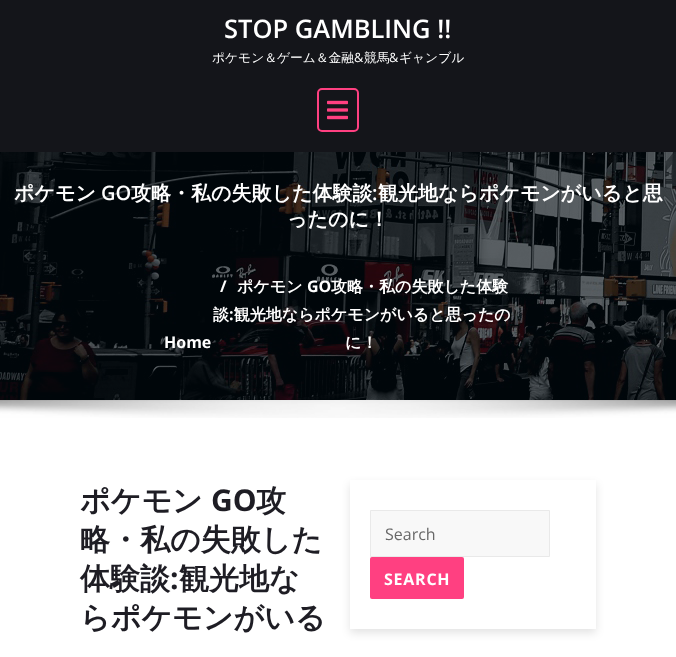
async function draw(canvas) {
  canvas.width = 676;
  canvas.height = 657;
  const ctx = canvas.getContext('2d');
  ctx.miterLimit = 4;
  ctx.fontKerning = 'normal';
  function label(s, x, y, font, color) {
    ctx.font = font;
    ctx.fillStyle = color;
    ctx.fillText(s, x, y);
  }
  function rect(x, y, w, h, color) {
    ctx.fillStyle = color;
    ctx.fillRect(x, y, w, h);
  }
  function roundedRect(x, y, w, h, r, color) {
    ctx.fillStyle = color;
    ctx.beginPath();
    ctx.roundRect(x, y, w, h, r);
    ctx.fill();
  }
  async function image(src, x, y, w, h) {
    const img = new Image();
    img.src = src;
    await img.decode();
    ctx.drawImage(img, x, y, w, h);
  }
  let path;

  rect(0, 0, 676, 657, '#fff');
  rect(0, 0, 676, 152, '#14151a');
  label('STOP GAMBLING !!', 224, 38, '600 25.5px Open Sans', '#fff');
  label('ポケモン＆ゲーム＆金融', 212, 62, '500 12.75px WenQuanYi Zen Hei', '#fff');
  label('&', 354, 62, '12.75px Open Sans', '#fff');
  label('競馬', 364, 62, '500 12.75px WenQuanYi Zen Hei', '#fff');
  label('&', 389, 62, '12.75px Open Sans', '#fff');
  label('ギャンブル', 399, 62, '500 12.75px WenQuanYi Zen Hei', '#fff');
  ctx.beginPath();
  ctx.roundRect(318, 89, 40, 42, 4);
  ctx.strokeStyle = '#ff4081';
  ctx.lineWidth = 2;
  ctx.stroke();
  await image('assets/img1.png', 327, 100, 21, 20);
  await image('assets/img2.png', 0, 152, 676, 248);
  label('ポケモン', 14, 200, 'bold 20px WenQuanYi Zen Hei', '#fff');
  label('GO', 101, 200, '600 20px Open Sans', '#fff');
  label('攻略・私の失敗した体験談', 131, 200, 'bold 20px WenQuanYi Zen Hei', '#fff');
  label(':', 372, 200, '600 20px Open Sans', '#fff');
  label('観光地ならポケモンがいると思', 378, 200, 'bold 20px WenQuanYi Zen Hei', '#fff');
  label('ったのに！', 287, 226, 'bold 20px WenQuanYi Zen Hei', '#fff');
  label('Home', 164, 348, 'bold 16px Open Sans', '#fff');
  label('/', 220, 292, 'bold 16px Open Sans', '#fff');
  label('ポケモン', 237, 292, 'bold 16px WenQuanYi Zen Hei', '#fff');
  label('GO', 307, 292, 'bold 16px Open Sans', '#fff');
  label('攻略・私の失敗した体験', 331, 292, 'bold 16px WenQuanYi Zen Hei', '#fff');
  label('談 観光地ならポケモンがいると思ったの', 213, 320, 'bold 16px WenQuanYi Zen Hei', '#fff');
  label(':', 229, 320, 'bold 16px Open Sans', '#fff');
  label('に！', 345, 348, 'bold 16px WenQuanYi Zen Hei', '#fff');
  await image('assets/img3.png', 0, 400, 676, 18);
  label('ポケモン', 80, 511, 'bold 30px WenQuanYi Zen Hei', '#1e1d24');
  label('GO', 211, 511, 'bold 30px Open Sans', '#1e1d24');
  label('攻', 256, 511, 'bold 30px WenQuanYi Zen Hei', '#1e1d24');
  label('略・私の失敗した', 80, 550, 'bold 30px WenQuanYi Zen Hei', '#1e1d24');
  label('体験談', 80, 589, 'bold 30px WenQuanYi Zen Hei', '#1e1d24');
  label(':', 170, 589, 'bold 30px Open Sans', '#1e1d24');
  label('観光地な', 179, 589, 'bold 30px WenQuanYi Zen Hei', '#1e1d24');
  label('らポケモンがいる', 80, 628, 'bold 30px WenQuanYi Zen Hei', '#1e1d24');
  ctx.save();
  path = new Path2D('M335 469H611V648H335ZM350 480H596V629H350Z');
  ctx.clip(path, 'evenodd');
  ctx.fillStyle = '#0000001c';
  ctx.filter = 'blur(4.5px)';
  ctx.beginPath();
  ctx.rect(350, 484, 246, 149);
  ctx.fill();
  ctx.filter = 'none';
  ctx.restore();
  ctx.fillStyle = '#f8f8f8';
  ctx.beginPath();
  ctx.rect(370.5, 510.5, 179, 46);
  ctx.fill();
  ctx.strokeStyle = '#e9e9e9';
  ctx.lineWidth = 1;
  ctx.stroke();
  label('Search', 385, 540, '16px Open Sans', '#686868');
  roundedRect(370, 557, 94, 42, 2, '#ff4081');
  ctx.letterSpacing = '0.75px';
  label('SEARCH', 384, 585, 'bold 16px Open Sans', '#fff');
}

draw(document.querySelector('canvas'));
